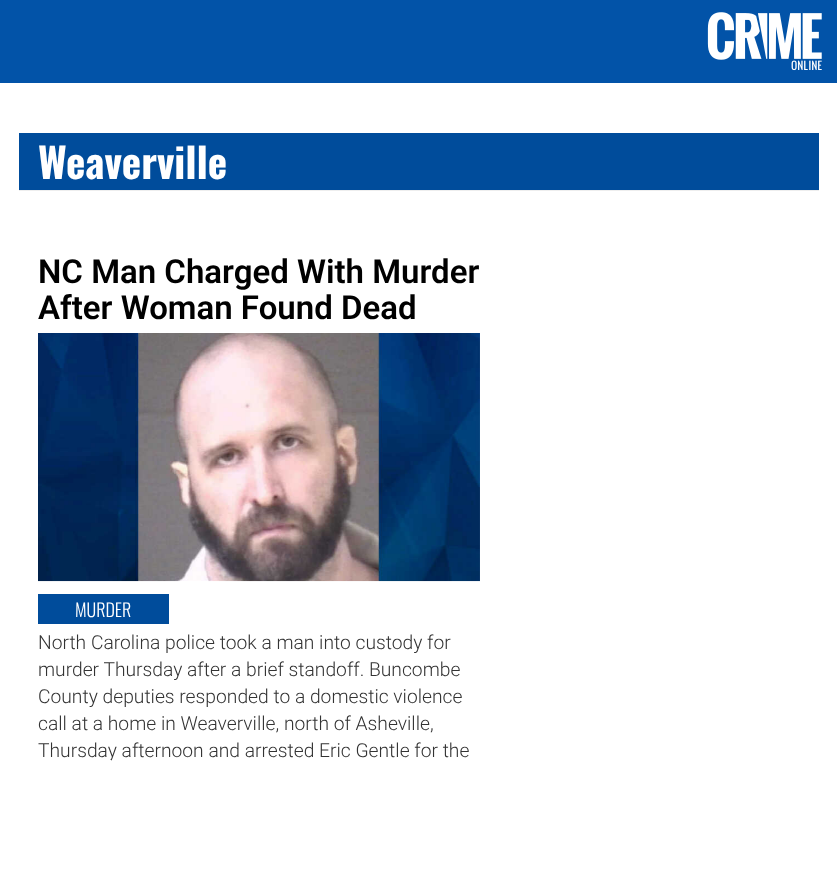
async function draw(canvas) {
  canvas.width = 837;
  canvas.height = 885;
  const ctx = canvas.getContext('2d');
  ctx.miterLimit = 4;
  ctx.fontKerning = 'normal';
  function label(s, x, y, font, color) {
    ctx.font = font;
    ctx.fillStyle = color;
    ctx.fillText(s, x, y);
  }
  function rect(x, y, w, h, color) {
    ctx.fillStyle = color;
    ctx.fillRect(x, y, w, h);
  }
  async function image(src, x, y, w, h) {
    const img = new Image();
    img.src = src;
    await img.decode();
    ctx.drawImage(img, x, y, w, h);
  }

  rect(0, 0, 837, 885, '#fff');
  rect(0, 0, 837, 83, '#0253a8');
  await image('assets/img1.png', 707, 12, 115, 59);
  rect(19, 133, 800, 57, '#004c9b');
  rect(19, 190, 800, 1, '#eee');
  label('Weaverville', 38, 179, 'bold 41.25px Oswald', '#fff');
  label('NC Man Charged With Murder', 38, 283, '600 33px Roboto', '#000');
  label('After Woman Found Dead', 38, 319, '600 33px Roboto', '#000');
  await image('assets/img2.png', 38, 333, 442, 249);
  rect(38, 594, 131, 30, '#004c9b');
  label('MURDER', 75, 617, '300 18px Oswald', '#fff');
  label('North Carolina police took a man into custody for', 38, 649, '300 19.25px Roboto', '#333');
  label('murder Thursday after a brief standoff. Buncombe', 38, 676, '300 19.25px Roboto', '#333');
  label('County deputies responded to a domestic violence', 38, 703, '300 19.25px Roboto', '#333');
  label('call at a home in Weaverville, north of Asheville,', 38, 730, '300 19.25px Roboto', '#333');
  label('Thursday afternoon and arrested Eric Gentle for the', 38, 757, '300 19.25px Roboto', '#333');
  rect(108, 760, 3, 2, '#fff');
}

draw(document.querySelector('canvas'));
